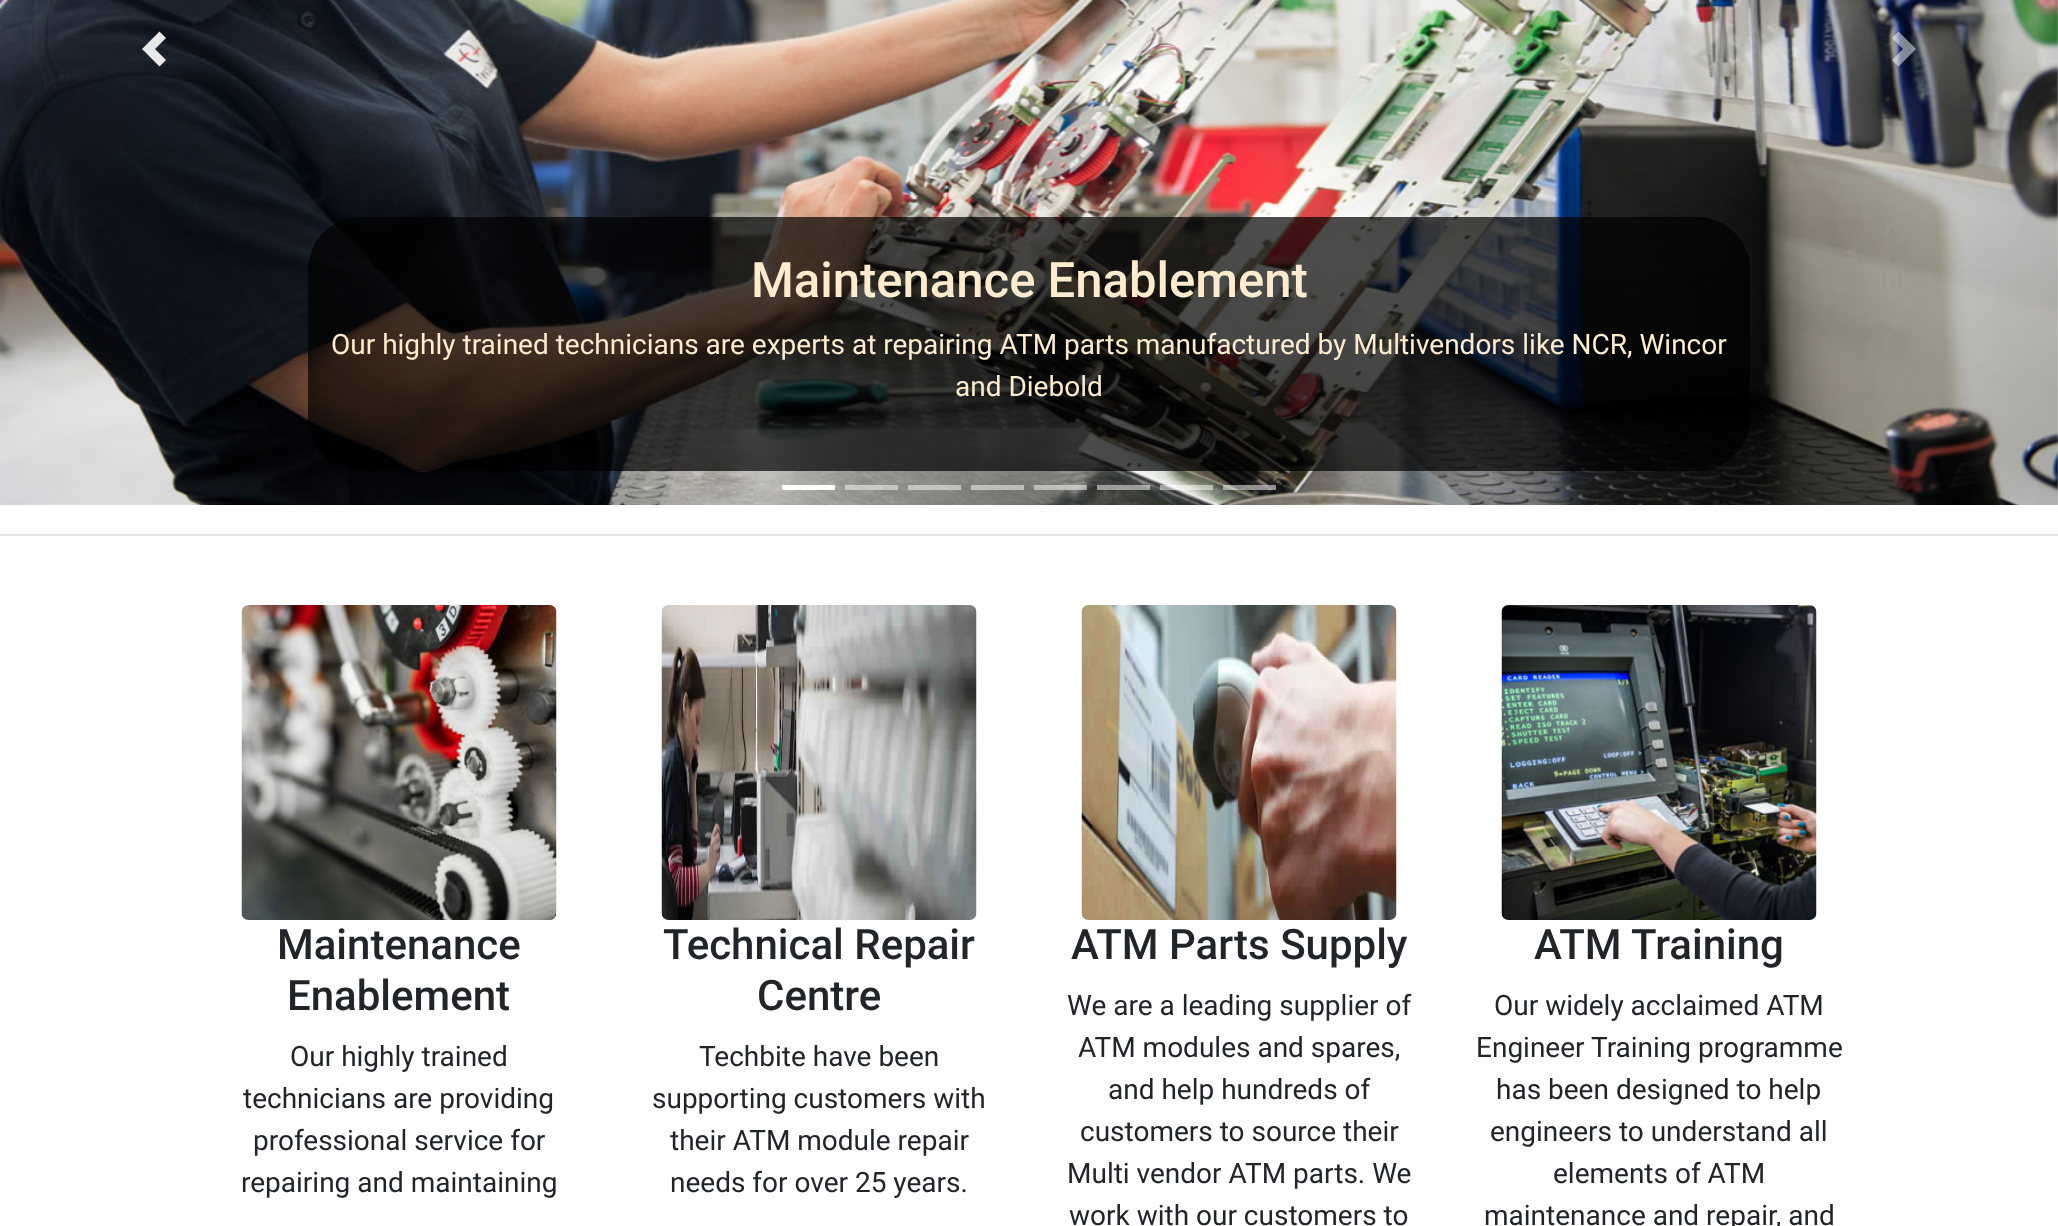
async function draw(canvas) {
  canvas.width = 2058;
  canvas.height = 1226;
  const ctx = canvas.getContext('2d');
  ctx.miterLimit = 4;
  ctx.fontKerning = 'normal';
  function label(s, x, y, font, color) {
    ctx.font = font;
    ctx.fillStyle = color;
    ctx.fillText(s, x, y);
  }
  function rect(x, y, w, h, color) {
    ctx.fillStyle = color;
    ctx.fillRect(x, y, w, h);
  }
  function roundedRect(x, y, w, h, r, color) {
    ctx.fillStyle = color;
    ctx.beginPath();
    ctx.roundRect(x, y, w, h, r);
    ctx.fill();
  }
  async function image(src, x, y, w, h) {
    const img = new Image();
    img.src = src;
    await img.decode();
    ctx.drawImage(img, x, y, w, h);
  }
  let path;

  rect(0, 0, 2058, 1226, '#fff');
  await image('assets/img1.png', 0, 0, 2058, 505);
  ctx.fillStyle = '#ffffffe6';
  path = new Path2D('M159.5 31.5L142 49L159.5 66.5L166 60L155 49L166 38Z');
  ctx.fill(path);
  ctx.fillStyle = '#ffffff80';
  path = new Path2D('M1898.5 31.5L1892 38L1903 49L1892 60L1898.5 66.5L1916 49Z');
  ctx.fill(path);
  roundedRect(308, 217, 1442, 254, 53, '#000000b3');
  label('Maintenance Enablement', 751, 297, '500 49px Roboto', '#ffebcd');
  label('Our highly trained technicians are experts at repairing ATM parts manufactured by Multivendors like NCR, Wincor', 331, 354, '28px Roboto', '#ffebcd');
  label('and Diebold', 955, 396, '28px Roboto', '#ffebcd');
  rect(782, 485, 53, 5, '#fff');
  rect(845, 485, 53, 5, '#ffffff80');
  rect(908, 485, 53, 5, '#ffffff80');
  rect(971, 485, 53, 5, '#ffffff80');
  rect(1034, 485, 53, 5, '#ffffff80');
  rect(1097, 485, 53, 5, '#ffffff80');
  rect(1160, 485, 53, 5, '#ffffff80');
  rect(1223, 485, 53, 5, '#ffffff80');
  rect(0, 534, 2058, 2, '#e6e6e6');
  await image('assets/img2.png', 241, 605, 316, 315);
  label('Maintenance', 277, 959, '500 42px Roboto', '#212529');
  label('Enablement', 287, 1010, '500 42px Roboto', '#212529');
  label('Our highly trained', 290, 1066, '28px Roboto', '#212529');
  label('technicians are providing', 243, 1108, '28px Roboto', '#212529');
  label('professional service for', 253, 1150, '28px Roboto', '#212529');
  label('repairing and maintaining', 241, 1192, '28px Roboto', '#212529');
  await image('assets/img3.png', 661, 605, 316, 315);
  label('Technical Repair', 663, 959, '500 42px Roboto', '#212529');
  label('Centre', 757, 1010, '500 42px Roboto', '#212529');
  label('Techbite have been', 699, 1066, '28px Roboto', '#212529');
  label('supporting customers with', 652, 1108, '28px Roboto', '#212529');
  label('their ATM module repair', 670, 1150, '28px Roboto', '#212529');
  label('needs for over 25 years.', 670, 1192, '28px Roboto', '#212529');
  await image('assets/img4.png', 1081, 605, 316, 315);
  label('ATM Parts Supply', 1071, 959, '500 42px Roboto', '#212529');
  label('We are a leading supplier of', 1067, 1015, '28px Roboto', '#212529');
  label('ATM modules and spares,', 1078, 1057, '28px Roboto', '#212529');
  label('and help hundreds of', 1108, 1099, '28px Roboto', '#212529');
  label('customers to source their', 1080, 1141, '28px Roboto', '#212529');
  label('Multi vendor ATM parts. We', 1067, 1183, '28px Roboto', '#212529');
  label('work with our customers to', 1069, 1225, '28px Roboto', '#212529');
  await image('assets/img5.png', 1501, 605, 316, 315);
  label('ATM Training', 1534, 959, '500 42px Roboto', '#212529');
  label('Our widely acclaimed ATM', 1494, 1015, '28px Roboto', '#212529');
  label('Engineer Training programme', 1476, 1057, '28px Roboto', '#212529');
  label('has been designed to help', 1496, 1099, '28px Roboto', '#212529');
  label('engineers to understand all', 1490, 1141, '28px Roboto', '#212529');
  label('elements of ATM', 1553, 1183, '28px Roboto', '#212529');
  label('maintenance and repair, and', 1484, 1225, '28px Roboto', '#212529');
}

draw(document.querySelector('canvas'));
